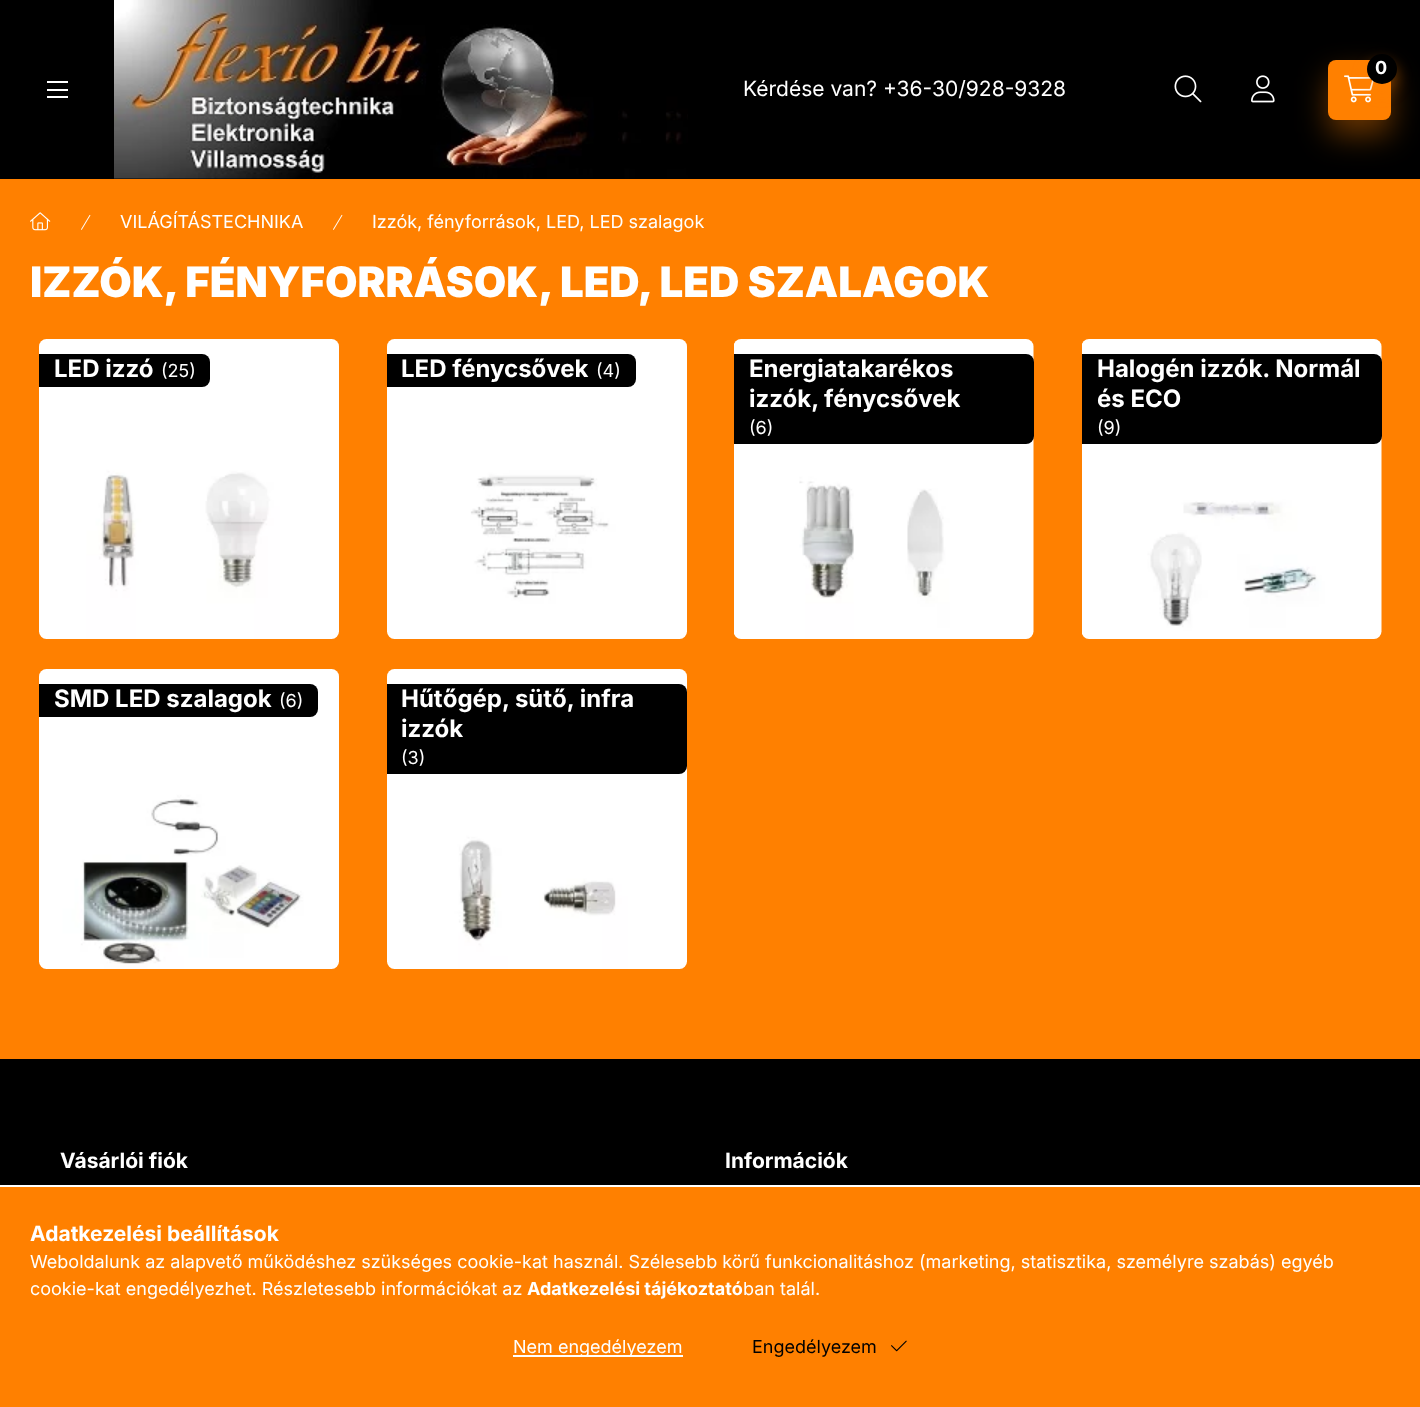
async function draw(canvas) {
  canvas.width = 1420;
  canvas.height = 1407;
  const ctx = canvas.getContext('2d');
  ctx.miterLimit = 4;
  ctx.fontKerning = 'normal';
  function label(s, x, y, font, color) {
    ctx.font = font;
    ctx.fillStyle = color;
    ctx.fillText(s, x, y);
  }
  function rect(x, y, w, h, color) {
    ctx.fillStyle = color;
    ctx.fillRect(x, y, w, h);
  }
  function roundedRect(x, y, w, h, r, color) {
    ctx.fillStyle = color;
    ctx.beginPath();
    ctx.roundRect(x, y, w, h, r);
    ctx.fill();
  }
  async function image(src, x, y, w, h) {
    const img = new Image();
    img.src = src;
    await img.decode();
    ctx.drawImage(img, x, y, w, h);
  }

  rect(0, 0, 1420, 1407, '#ff8000');
  rect(0, 0, 1420, 179, '#000');
  ctx.fillStyle = '#ff800066';
  ctx.filter = 'blur(15px)';
  ctx.beginPath();
  ctx.roundRect(1328, 75, 63, 60, 8);
  ctx.fill();
  ctx.filter = 'none';
  roundedRect(1328, 60, 63, 60, 8, '#ff8000');
  await image('assets/img1.png', 1344, 75, 30, 28);
  ctx.fillStyle = '#ff800066';
  ctx.filter = 'blur(7.5px)';
  ctx.beginPath();
  ctx.roundRect(1367, 62, 30, 30, 15);
  ctx.fill();
  ctx.filter = 'none';
  ctx.fillStyle = '#000';
  ctx.beginPath();
  ctx.arc(1382, 69, 15, 0, 2 * Math.PI);
  ctx.fill();
  label('0', 1375, 74, 'bold 18px Inter', '#fff');
  await image('assets/img2.png', 1174, 75, 28, 28);
  await image('assets/img3.png', 1251, 75, 24, 28);
  rect(47, 81, 21, 2, '#fff');
  rect(47, 89, 21, 2, '#fff');
  rect(47, 96, 21, 2, '#fff');
  await image('assets/img4.png', 114, 0, 574, 179);
  label('Kérdése van? +36-30/928-9328', 743, 96, '21px Inter', '#fff');
  await image('assets/img5.png', 30, 212, 21, 19);
  await image('assets/img6.png', 81, 214, 10, 16);
  label('VILÁGÍTÁSTECHNIKA', 120, 228, '18px Inter', '#fff');
  await image('assets/img6.png', 333, 214, 10, 16);
  label('Izzók, fényforrások, LED, LED szalagok', 372, 228, '18px Inter', '#fff');
  label('IZZÓK, FÉNYFORRÁSOK, LED, LED SZALAGOK', 30, 297, '900 42px Inter', '#fff');
  await image('assets/img7.png', 39, 339, 300, 300);
  ctx.fillStyle = '#000';
  ctx.beginPath();
  ctx.roundRect(39, 354, 171, 33, [0, 8, 8, 0]);
  ctx.fill();
  label('LED izzó', 54, 377, 'bold 24px Inter', '#fff');
  label('(25)', 161, 377, '18px Inter', '#fff');
  await image('assets/img8.png', 387, 339, 300, 300);
  ctx.fillStyle = '#000';
  ctx.beginPath();
  ctx.roundRect(387, 354, 249, 33, [0, 8, 8, 0]);
  ctx.fill();
  label('LED fénycsővek', 401, 377, 'bold 24px Inter', '#fff');
  label('(4)', 596, 377, '18px Inter', '#fff');
  await image('assets/img9.png', 734, 339, 300, 300);
  ctx.fillStyle = '#000';
  ctx.beginPath();
  ctx.roundRect(734, 354, 300, 90, [0, 8, 8, 0]);
  ctx.fill();
  label('Energiatakarékos', 749, 377, 'bold 24px Inter', '#fff');
  label('izzók, fénycsővek', 749, 407, 'bold 24px Inter', '#fff');
  label('(6)', 749, 434, '18px Inter', '#fff');
  await image('assets/img10.png', 1082, 339, 300, 300);
  ctx.fillStyle = '#000';
  ctx.beginPath();
  ctx.roundRect(1082, 354, 300, 90, [0, 8, 8, 0]);
  ctx.fill();
  label('Halogén izzók. Normál', 1097, 377, 'bold 24px Inter', '#fff');
  label('és ECO', 1097, 407, 'bold 24px Inter', '#fff');
  label('(9)', 1097, 434, '18px Inter', '#fff');
  await image('assets/img11.png', 39, 669, 300, 300);
  ctx.fillStyle = '#000';
  ctx.beginPath();
  ctx.roundRect(39, 684, 279, 33, [0, 8, 8, 0]);
  ctx.fill();
  label('SMD LED szalagok', 54, 707, 'bold 24px Inter', '#fff');
  label('(6)', 279, 707, '18px Inter', '#fff');
  await image('assets/img12.png', 387, 669, 300, 300);
  ctx.fillStyle = '#000';
  ctx.beginPath();
  ctx.roundRect(387, 684, 300, 90, [0, 8, 8, 0]);
  ctx.fill();
  label('Hűtőgép, sütő, infra', 401, 707, 'bold 24px Inter', '#fff');
  label('izzók', 401, 737, 'bold 24px Inter', '#fff');
  label('(3)', 401, 764, '18px Inter', '#fff');
  rect(0, 1059, 1420, 126, '#000');
  label('Vásárlói fiók', 60, 1168, 'bold 21px Inter', '#fff');
  label('Információk', 725, 1168, 'bold 21px Inter', '#fff');
  rect(0, 1185, 1420, 2, '#fff');
  label('Adatkezelési beállítások', 30, 1241, 'bold 21px Inter', '#fff');
  label('Weboldalunk az alapvető működéshez szükséges cookie-kat használ. Szélesebb körű funkcionalitáshoz (marketing, statisztika, személyre szabás) egyéb', 30, 1268, '18px Inter', '#fff');
  label('cookie-kat engedélyezhet. Részletesebb információkat az', 30, 1295, '18px Inter', '#fff');
  label('Adatkezelési tájékoztató', 527, 1295, 'bold 18px Inter', '#fff');
  label('ban talál.', 743, 1295, '18px Inter', '#fff');
  rect(513, 1355, 170, 2, '#fff');
  label('Nem engedélyezem', 513, 1353, '18px Inter', '#fff');
  label('Engedélyezem', 752, 1353, '18px Inter', '#000');
  await image('assets/img13.png', 891, 1340, 16, 12);
}

draw(document.querySelector('canvas'));
